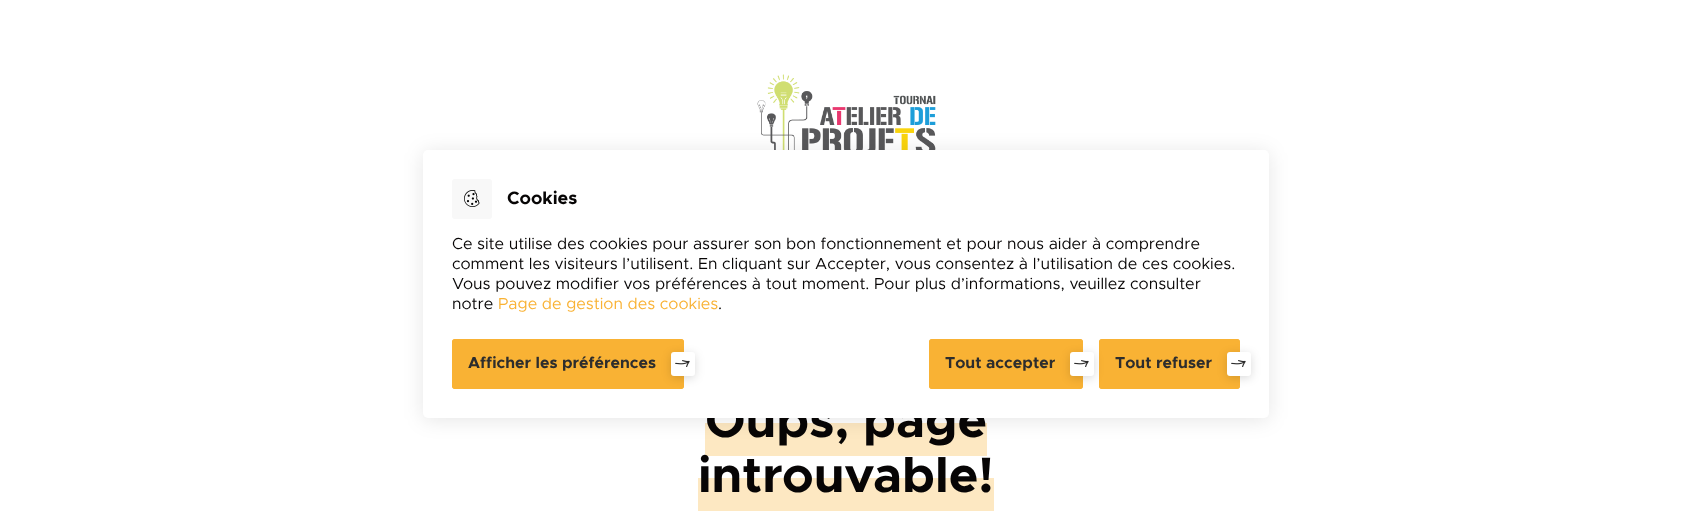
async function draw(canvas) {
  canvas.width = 1692;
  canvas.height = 517;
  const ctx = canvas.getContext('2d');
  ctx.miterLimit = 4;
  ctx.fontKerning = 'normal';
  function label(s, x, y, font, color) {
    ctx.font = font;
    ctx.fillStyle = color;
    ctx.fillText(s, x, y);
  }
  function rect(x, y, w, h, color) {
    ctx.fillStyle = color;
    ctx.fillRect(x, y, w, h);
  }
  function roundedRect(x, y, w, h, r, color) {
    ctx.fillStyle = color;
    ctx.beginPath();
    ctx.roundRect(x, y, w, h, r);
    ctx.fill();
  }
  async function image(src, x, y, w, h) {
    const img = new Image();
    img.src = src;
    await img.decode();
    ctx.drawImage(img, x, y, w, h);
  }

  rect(0, 0, 1692, 517, '#fff');
  await image('assets/img3.png', 757, 74, 179, 76);
  rect(705, 423, 282, 33, '#fde8c2');
  ctx.fillStyle = '#0000001a';
  ctx.filter = 'blur(10px)';
  ctx.beginPath();
  ctx.roundRect(423, 152, 846, 268, 5);
  ctx.fill();
  ctx.filter = 'none';
  label('Oups, page', 705, 437, 'bold 50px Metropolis', '#070505');
  roundedRect(423, 150, 846, 268, 5, '#fff');
  roundedRect(452, 179, 40, 40, 3, '#f8f8f8');
  await image('assets/img1.png', 464, 190, 16, 17);
  label('Cookies', 507, 204, 'bold 18px Metropolis', '#070505');
  label('Ce site utilise des cookies pour assurer son bon fonctionnement et pour nous aider à comprendre', 452, 249, '16px Metropolis', '#070505');
  label('comment les visiteurs l’utilisent. En cliquant sur Accepter, vous consentez à l’utilisation de ces cookies.', 452, 269, '16px Metropolis', '#070505');
  label('Vous pouvez modifier vos préférences à tout moment. Pour plus d’informations, veuillez consulter', 452, 289, '16px Metropolis', '#070505');
  label('notre', 452, 309, '16px Metropolis', '#070505');
  label('Page de gestion des cookies', 498, 309, '16px Metropolis', '#f9b234');
  label('.', 718, 309, '16px Metropolis', '#070505');
  ctx.fillStyle = '#f9b234';
  ctx.beginPath();
  ctx.roundRect(454.5, 341.5, 227, 45, 0.5);
  ctx.fill();
  ctx.strokeStyle = '#f9b234';
  ctx.lineWidth = 5;
  ctx.stroke();
  ctx.beginPath();
  ctx.roundRect(452.5, 339.5, 231, 49, 2.5);
  ctx.lineWidth = 1;
  ctx.stroke();
  ctx.fillStyle = '#00000026';
  ctx.filter = 'blur(5px)';
  ctx.beginPath();
  ctx.roundRect(671, 354, 24, 24, 3);
  ctx.fill();
  ctx.filter = 'none';
  roundedRect(671, 352, 24, 24, 3, '#fff');
  await image('assets/img2.png', 675, 360, 15, 7);
  label('Afficher les préférences', 468, 368, 'bold 16px Metropolis', '#2d2d2d');
  ctx.fillStyle = '#f9b234';
  ctx.beginPath();
  ctx.roundRect(931.5, 341.5, 149, 45, 0.5);
  ctx.fill();
  ctx.lineWidth = 5;
  ctx.stroke();
  ctx.beginPath();
  ctx.roundRect(929.5, 339.5, 153, 49, 2.5);
  ctx.lineWidth = 1;
  ctx.stroke();
  ctx.beginPath();
  ctx.roundRect(1101.5, 341.5, 136, 45, 0.5);
  ctx.fill();
  ctx.lineWidth = 5;
  ctx.stroke();
  ctx.beginPath();
  ctx.roundRect(1099.5, 339.5, 140, 49, 2.5);
  ctx.lineWidth = 1;
  ctx.stroke();
  ctx.fillStyle = '#00000026';
  ctx.filter = 'blur(5px)';
  ctx.beginPath();
  ctx.roundRect(1070, 354, 24, 24, 3);
  ctx.fill();
  ctx.filter = 'none';
  roundedRect(1070, 352, 24, 24, 3, '#fff');
  await image('assets/img2.png', 1074, 360, 15, 7);
  label('Tout accepter', 945, 368, 'bold 16px Metropolis', '#2d2d2d');
  ctx.fillStyle = '#00000026';
  ctx.filter = 'blur(5px)';
  ctx.beginPath();
  ctx.roundRect(1227, 354, 24, 24, 3);
  ctx.fill();
  ctx.filter = 'none';
  roundedRect(1227, 352, 24, 24, 3, '#fff');
  await image('assets/img2.png', 1231, 360, 15, 7);
  label('Tout refuser', 1115, 368, 'bold 16px Metropolis', '#2d2d2d');
  rect(698, 478, 296, 33, '#fde8c2');
  label('introuvable!', 698, 492, 'bold 50px Metropolis', '#070505');
}

draw(document.querySelector('canvas'));
